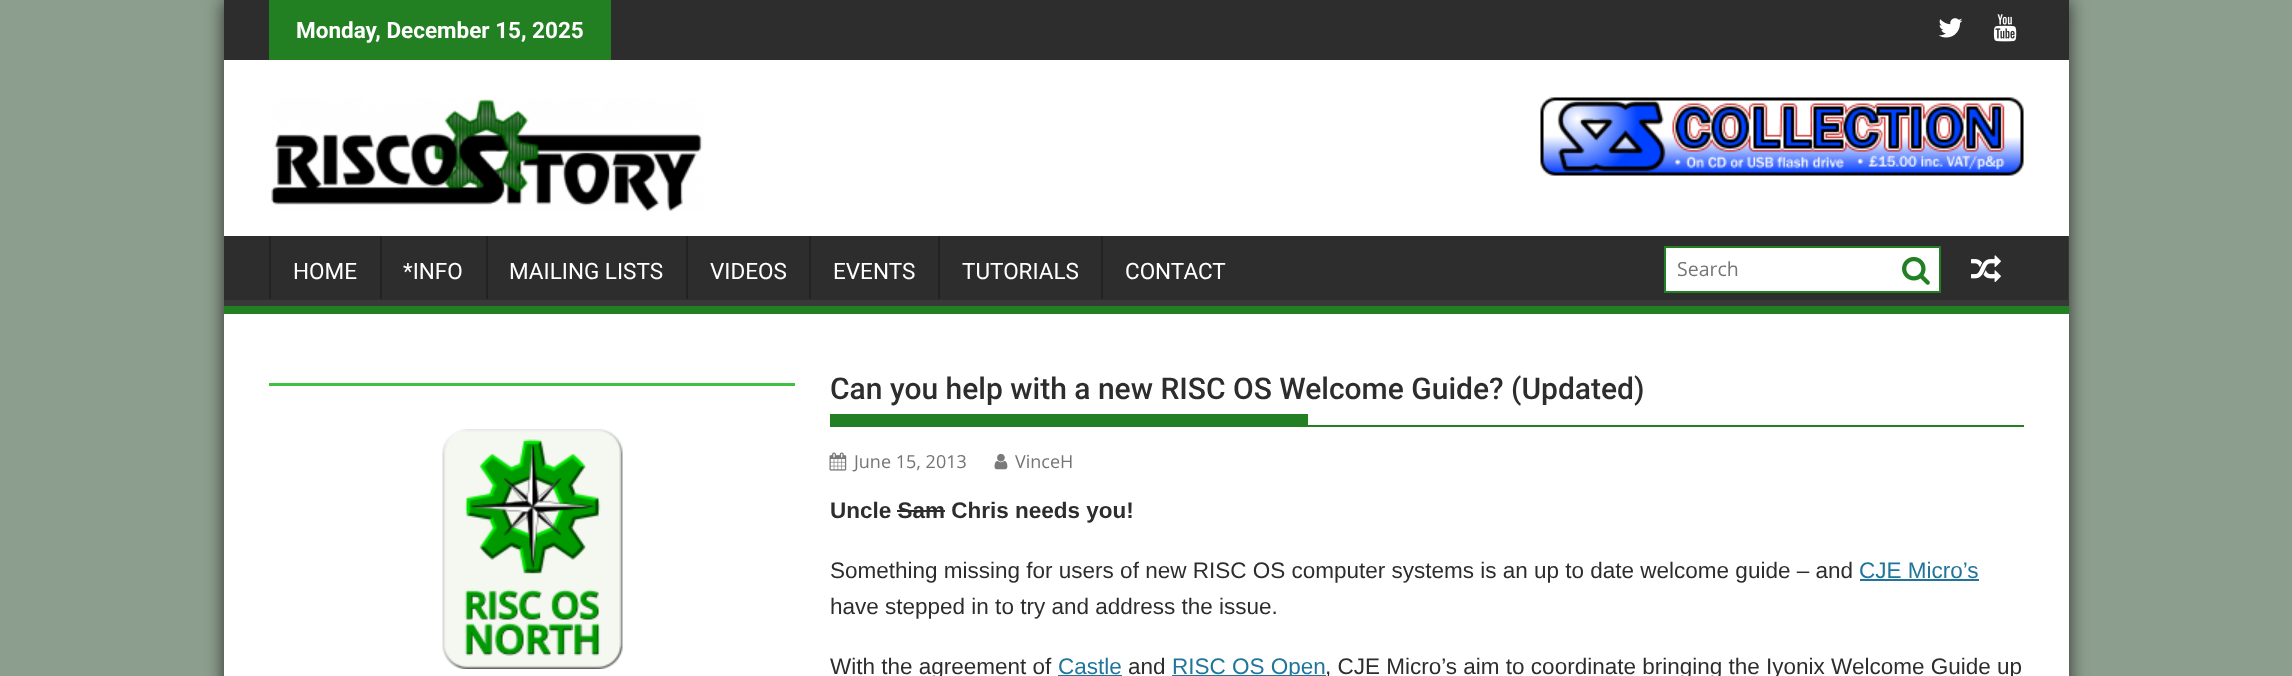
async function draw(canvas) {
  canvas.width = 2292;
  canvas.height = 676;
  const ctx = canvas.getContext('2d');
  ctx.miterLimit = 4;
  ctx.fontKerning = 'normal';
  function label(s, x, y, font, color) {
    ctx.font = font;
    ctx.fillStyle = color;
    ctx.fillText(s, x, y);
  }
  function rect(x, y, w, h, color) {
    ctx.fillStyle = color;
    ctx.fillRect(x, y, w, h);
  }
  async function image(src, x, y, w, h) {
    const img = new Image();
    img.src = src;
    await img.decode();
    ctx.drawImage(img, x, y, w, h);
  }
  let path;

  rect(0, 0, 2292, 676, '#8c9e8d');
  ctx.fillStyle = '#2d2d2d';
  ctx.filter = 'blur(9px)';
  ctx.beginPath();
  ctx.rect(224, 0, 1845, 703);
  ctx.fill();
  ctx.filter = 'none';
  rect(224, 60, 1845, 616, '#fff');
  rect(224, 0, 1845, 60, '#2d2d2d');
  rect(269, 0, 342, 60, '#227f22');
  label('Monday, December 15, 2025', 296, 38, 'bold 22.5px Roboto', '#fff');
  await image('assets/img1.png', 1938, 18, 25, 20);
  await image('assets/img2.png', 1993, 14, 24, 28);
  await image('assets/img3.png', 271, 98, 432, 114);
  await image('assets/img4.png', 1540, 97, 484, 79);
  rect(224, 236, 1844, 64, '#2d2d2d');
  ctx.save();
  ctx.beginPath();
  ctx.rect(224, 236, 1845, 70);
  ctx.clip();
  ctx.fillStyle = '#393939';
  path = new Path2D('M75 87H2217V454H75ZM222 226H2067C2068 226 2068 227 2068 228V298C2068 299 2068 300 2067 300H222C221 300 220 299 220 298V228C220 227 221 226 222 226Z');
  ctx.fill(path, 'evenodd');
  ctx.restore();
  rect(224, 306, 1845, 8, '#227f22');
  rect(269, 236, 2, 63, '#222');
  label('HOME', 293, 279, '22.5px Roboto', '#fff');
  rect(380, 236, 2, 63, '#222');
  label('*INFO', 403, 279, '22.5px Roboto', '#fff');
  rect(486, 236, 2, 63, '#222');
  label('MAILING LISTS', 509, 279, '22.5px Roboto', '#fff');
  rect(686, 236, 2, 63, '#222');
  label('VIDEOS', 710, 279, '22.5px Roboto', '#fff');
  rect(809, 236, 2, 63, '#222');
  label('EVENTS', 833, 279, '22.5px Roboto', '#fff');
  rect(938, 236, 2, 63, '#222');
  label('TUTORIALS', 962, 279, '22.5px Roboto', '#fff');
  rect(1101, 236, 2, 63, '#222');
  label('CONTACT', 1125, 279, '22.5px Roboto', '#fff');
  ctx.beginPath();
  ctx.rect(1665, 247, 275, 45);
  ctx.fill();
  ctx.strokeStyle = '#227f22';
  ctx.lineWidth = 2;
  ctx.stroke();
  label('Search', 1677, 276, '19.5px Open Sans', '#757575');
  await image('assets/img5.png', 1902, 256, 28, 29);
  await image('assets/img6.png', 1971, 255, 30, 27);
  rect(269, 383, 526, 3, '#40c040');
  await image('assets/img7.png', 442, 429, 181, 240);
  rect(830, 425, 1194, 2, '#227f22');
  label('Can you help with a new RISC OS Welcome Guide? (Updated)', 830, 399, '500 30px Roboto', '#2d2d2d');
  rect(830, 414, 478, 11, '#227f22');
  await image('assets/img8.png', 829, 452, 18, 19);
  label('June 15, 2013', 854, 468, '18px Open Sans', '#757575');
  await image('assets/img9.png', 994, 453, 14, 17);
  label('VinceH', 1015, 468, '18px Open Sans', '#757575');
  label('Uncle Sam Chris needs you!', 830, 518, 'bold 22.5px Liberation Sans', '#2d2d2d');
  rect(897, 510, 48, 2, '#2d2d2d');
  label('Something missing for users of new RISC OS computer systems is an up to date welcome guide – and', 830, 578, '22.5px Liberation Sans', '#2d2d2d');
  label('CJE Micro’s', 1859, 578, '22.5px Liberation Sans', '#21759b');
  rect(1860, 579, 119, 2, '#21759b');
  label('have stepped in to try and address the issue.', 830, 614, '22.5px Liberation Sans', '#2d2d2d');
  label('With the agreement of', 830, 674, '22.5px Liberation Sans', '#2d2d2d');
  label('Castle', 1058, 674, '22.5px Liberation Sans', '#21759b');
  rect(1058, 675, 64, 1, '#21759b');
  label('and', 1128, 674, '22.5px Liberation Sans', '#2d2d2d');
  rect(1172, 675, 154, 1, '#21759b');
  label('RISC OS Open', 1172, 674, '22.5px Liberation Sans', '#21759b');
  label(', CJE Micro’s aim to coordinate bringing the Iyonix Welcome Guide up', 1325, 674, '22.5px Liberation Sans', '#2d2d2d');
}

draw(document.querySelector('canvas'));
